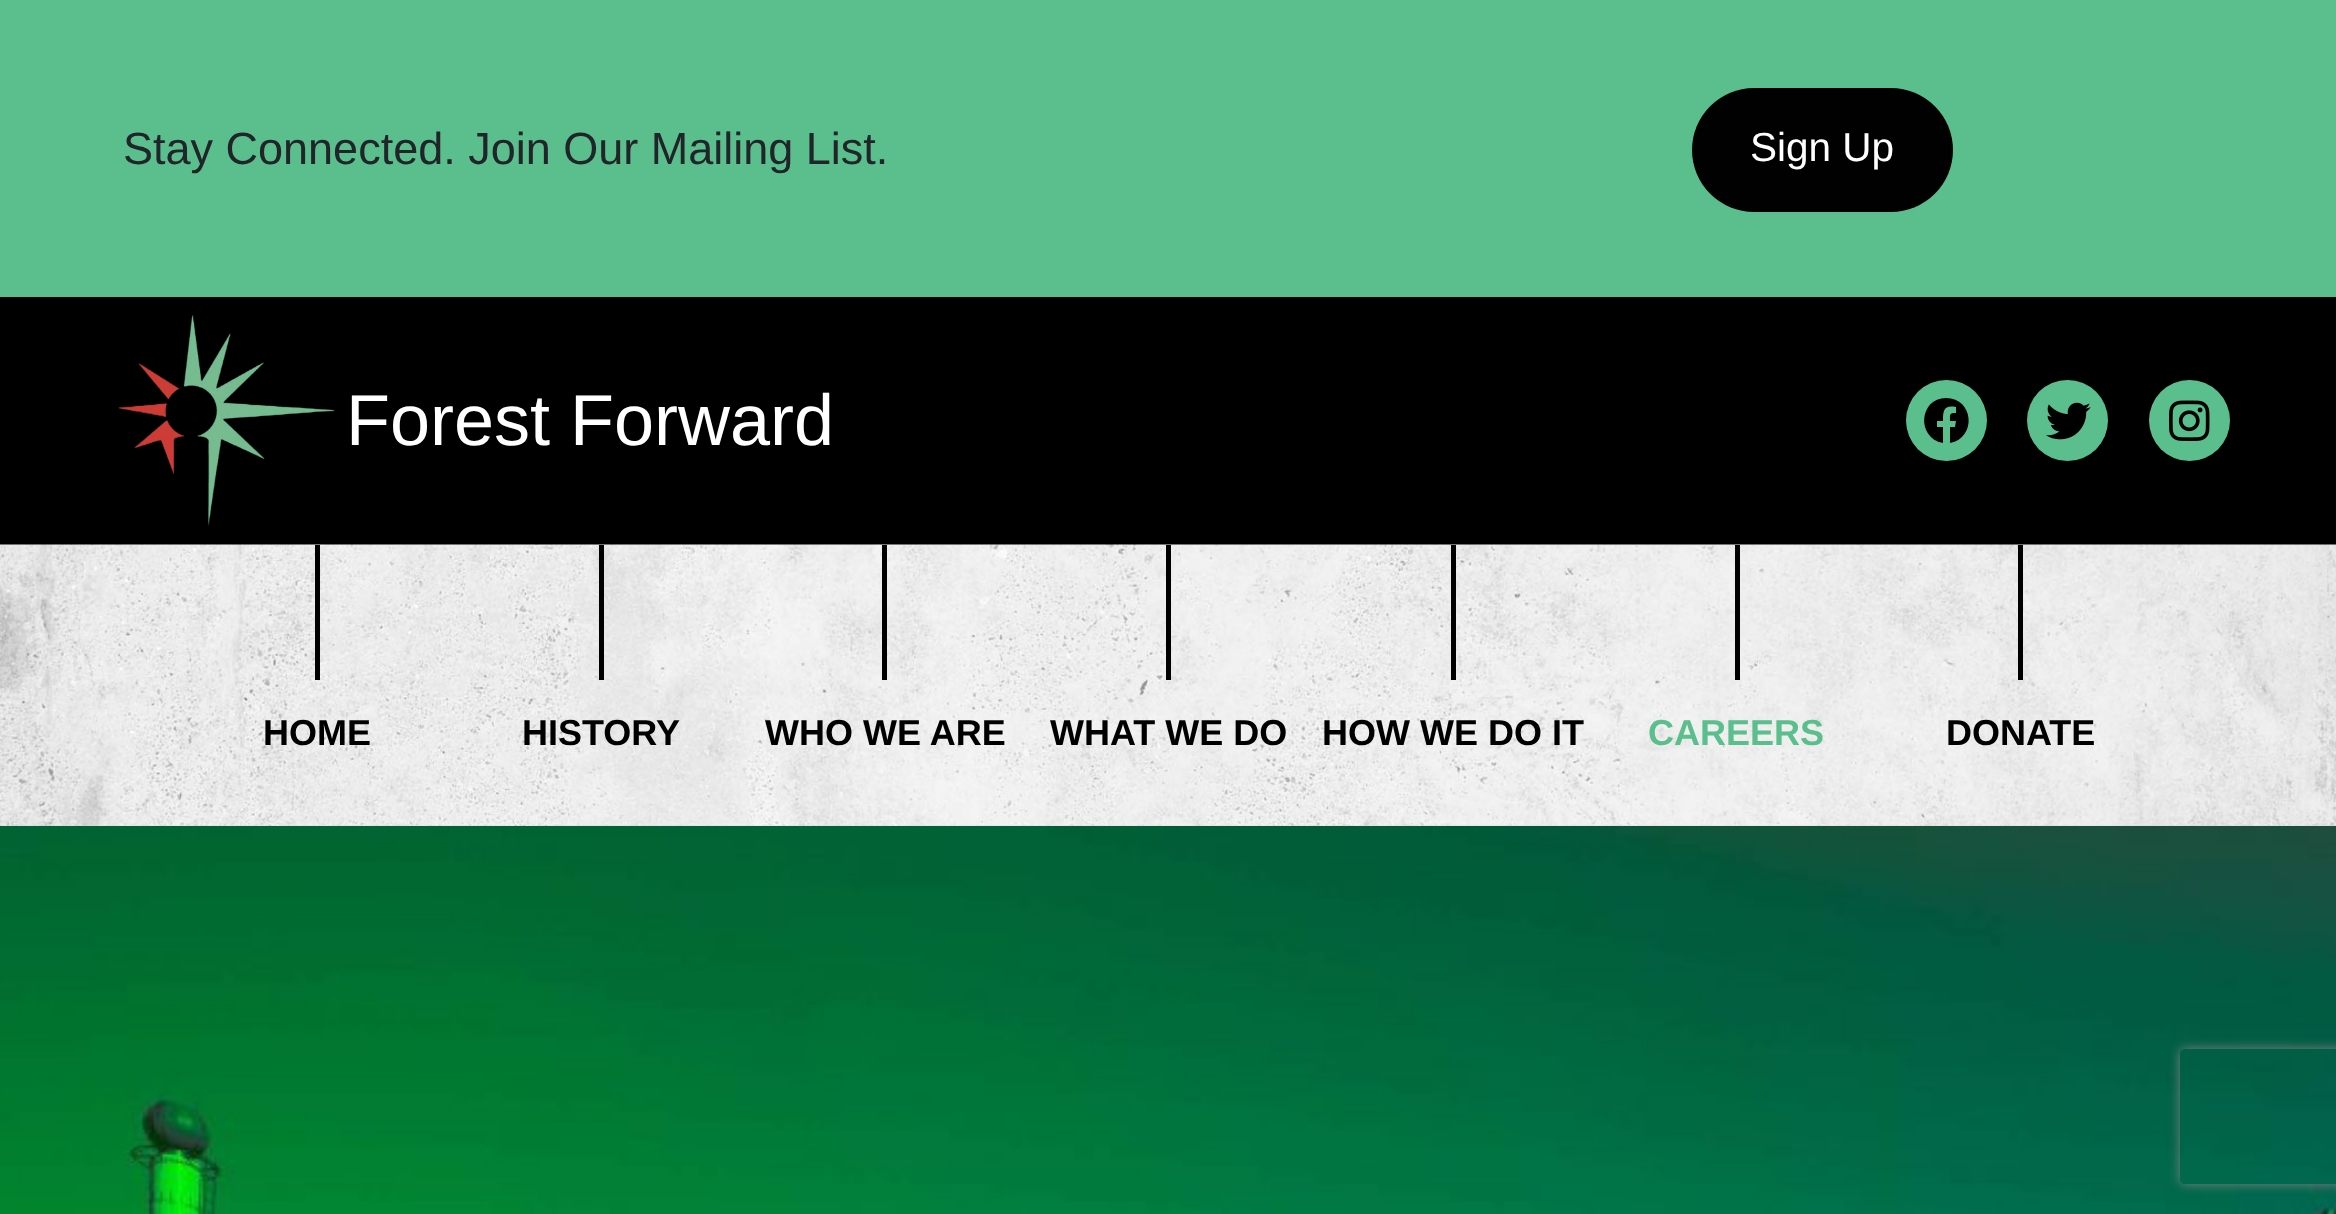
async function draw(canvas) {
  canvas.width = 2336;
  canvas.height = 1214;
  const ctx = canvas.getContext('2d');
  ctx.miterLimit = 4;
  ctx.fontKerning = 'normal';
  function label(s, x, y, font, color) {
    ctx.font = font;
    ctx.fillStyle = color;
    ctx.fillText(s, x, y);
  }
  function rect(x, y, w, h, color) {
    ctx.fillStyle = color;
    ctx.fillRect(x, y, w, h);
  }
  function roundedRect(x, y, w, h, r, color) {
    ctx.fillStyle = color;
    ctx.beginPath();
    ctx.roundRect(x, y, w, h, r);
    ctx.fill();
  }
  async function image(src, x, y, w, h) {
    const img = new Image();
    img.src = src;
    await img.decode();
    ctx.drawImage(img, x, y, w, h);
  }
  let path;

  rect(0, 0, 2336, 1214, '#fff');
  rect(0, 0, 2336, 297, '#5bbf8d');
  label('Stay Connected. Join Our Mailing List.', 123, 164, '45px Liberation Sans', '#212529');
  roundedRect(1692, 88, 261, 124, 62, '#010101');
  label('Sign Up', 1750, 161, '40.5px Liberation Sans', '#fff');
  rect(0, 297, 2336, 248, '#000');
  await image('assets/img1.png', 118, 315, 217, 211);
  label('Forest Forward', 346, 445, '72px Liberation Sans', '#fff');
  ctx.fillStyle = '#5abf8d';
  ctx.beginPath();
  ctx.arc(1946.5, 420.5, 40.5, 0, 2 * Math.PI);
  ctx.fill();
  ctx.fillStyle = '#000';
  path = new Path2D('M1946 398C1919 398 1916 438 1943 443V427H1937V421H1943C1943 410 1944 405 1956 407V413C1949 413 1950 414 1950 421H1956L1955 427H1950V443C1977 438 1974 398 1946 398Z');
  ctx.fill(path);
  ctx.fillStyle = '#5abf8d';
  ctx.beginPath();
  ctx.arc(2067.5, 420.5, 40.5, 0, 2 * Math.PI);
  ctx.fill();
  await image('assets/img2.png', 2046, 402, 45, 38);
  ctx.beginPath();
  ctx.arc(2189.5, 420.5, 40.5, 0, 2 * Math.PI);
  ctx.fill();
  await image('assets/img3.png', 2169, 400, 41, 41);
  await image('assets/img4.png', 0, 544, 2336, 282);
  rect(315, 545, 5, 135, '#000');
  label('HOME', 263, 745, 'bold 36px Liberation Sans', '#000');
  rect(599, 545, 5, 135, '#000');
  label('HISTORY', 522, 745, 'bold 36px Liberation Sans', '#000');
  rect(882, 545, 5, 135, '#000');
  label('WHO WE ARE', 765, 745, 'bold 36px Liberation Sans', '#000');
  rect(1166, 545, 5, 135, '#000');
  label('WHAT WE DO', 1050, 745, 'bold 36px Liberation Sans', '#000');
  rect(1451, 545, 5, 135, '#000');
  label('HOW WE DO IT', 1322, 745, 'bold 36px Liberation Sans', '#000');
  rect(1735, 545, 5, 135, '#000');
  label('CAREERS', 1648, 745, 'bold 36px Liberation Sans', '#5abf8d');
  rect(2018, 545, 5, 135, '#000');
  label('DONATE', 1946, 745, 'bold 36px Liberation Sans', '#000');
  await image('assets/img5.png', 0, 825, 2336, 389);
  ctx.save();
  path = new Path2D('M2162 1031H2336V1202H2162ZM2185 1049H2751C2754 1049 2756 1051 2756 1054V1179C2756 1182 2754 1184 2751 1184H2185C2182 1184 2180 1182 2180 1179V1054C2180 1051 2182 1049 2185 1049Z');
  ctx.clip(path, 'evenodd');
  ctx.fillStyle = '#808080';
  ctx.filter = 'blur(5.5px)';
  ctx.beginPath();
  ctx.roundRect(2180, 1049, 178, 135, 5);
  ctx.fill();
  ctx.filter = 'none';
  ctx.restore();
}

draw(document.querySelector('canvas'));
